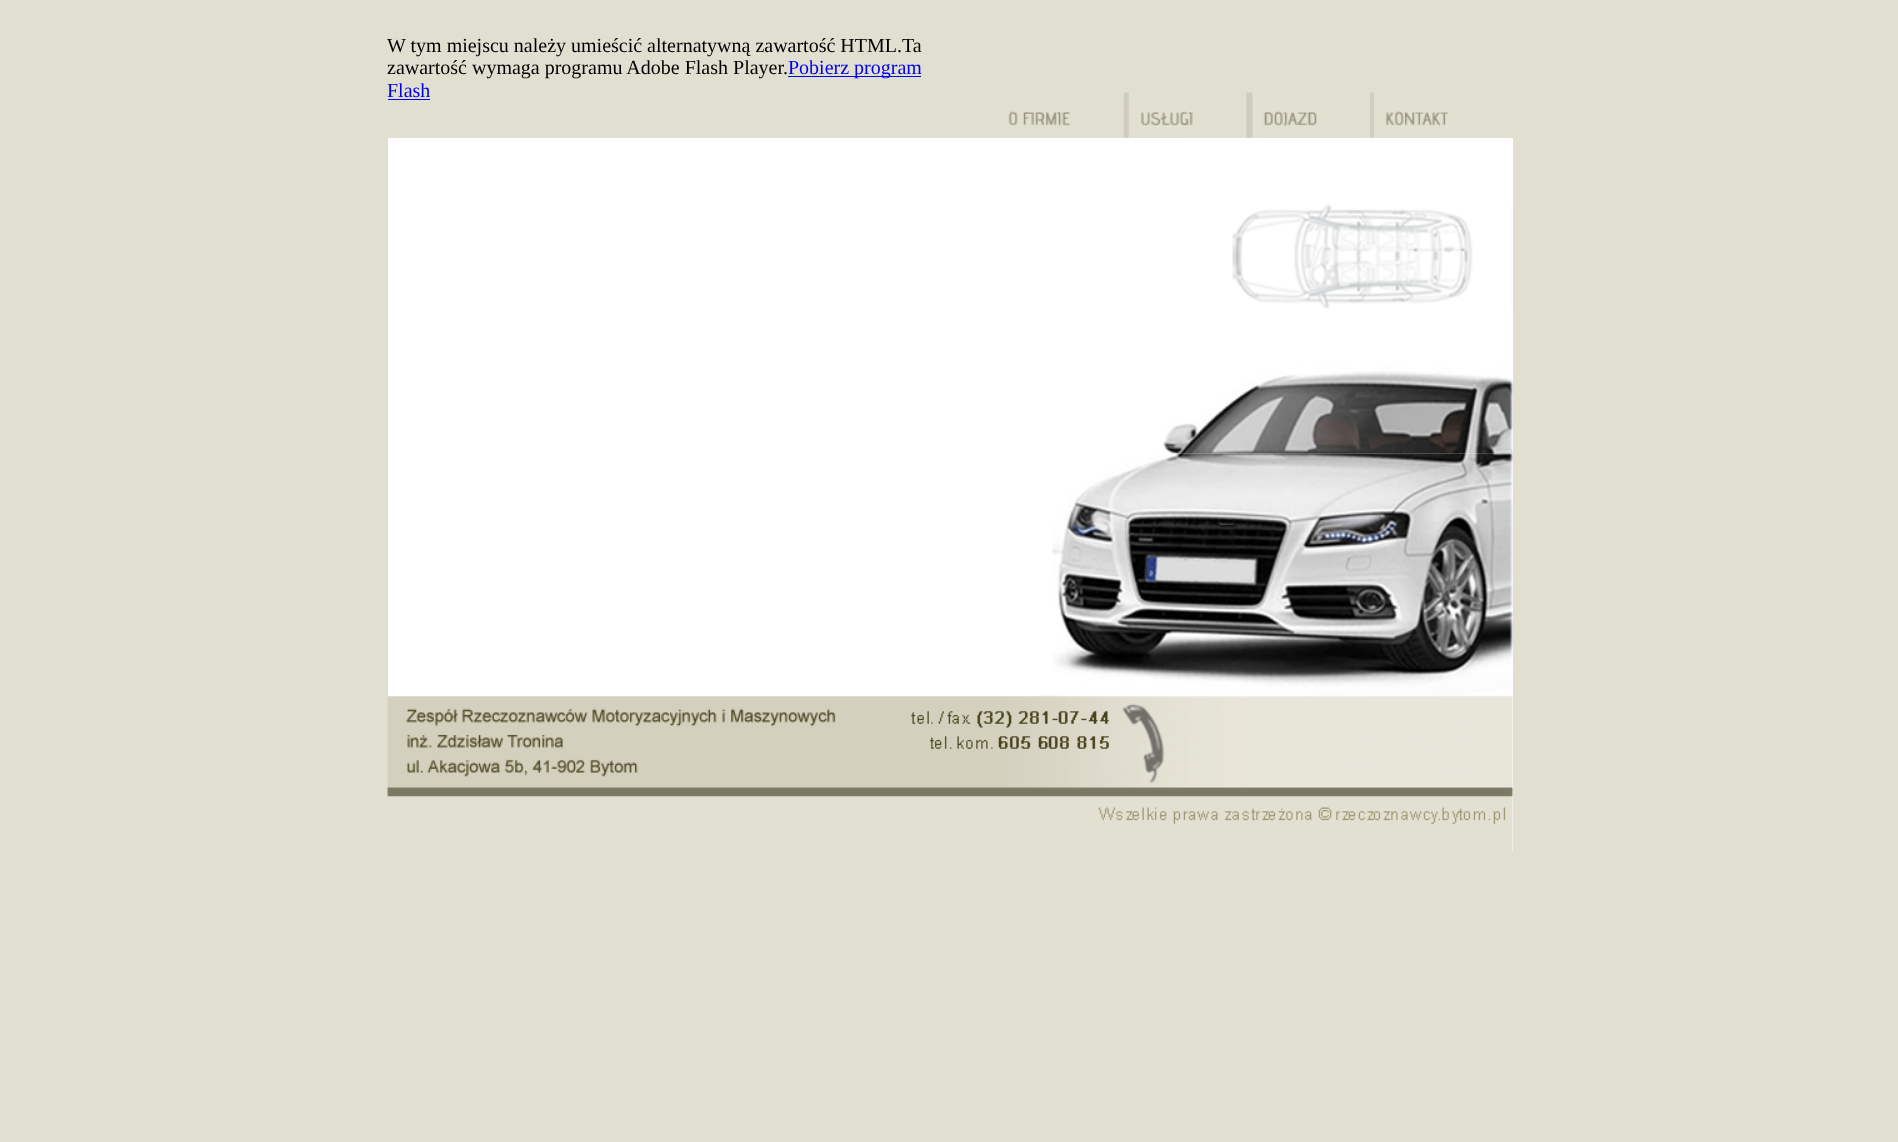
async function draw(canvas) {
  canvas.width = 1898;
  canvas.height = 1142;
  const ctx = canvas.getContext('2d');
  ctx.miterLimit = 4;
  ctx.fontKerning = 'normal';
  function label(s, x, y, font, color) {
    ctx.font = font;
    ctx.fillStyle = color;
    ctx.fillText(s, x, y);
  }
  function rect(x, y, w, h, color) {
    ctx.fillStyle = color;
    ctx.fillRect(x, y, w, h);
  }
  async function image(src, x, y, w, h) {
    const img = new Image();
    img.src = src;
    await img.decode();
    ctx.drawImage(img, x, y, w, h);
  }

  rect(0, 0, 1898, 1142, '#e1dfd0');
  label('W tym miejscu należy umieścić alternatywną zawartość HTML.Ta', 387, 52, '20px Liberation Serif', '#000');
  label('zawartość wymaga programu Adobe Flash Player.', 387, 74, '20px Liberation Serif', '#000');
  rect(788, 76, 133, 1, '#00e');
  label('Pobierz program', 788, 74, '20px Liberation Serif', '#00e');
  label('Flash', 387, 97, '20px Liberation Serif', '#00e');
  rect(388, 99, 42, 1, '#00e');
  await image('assets/img1.png', 1008, 111, 62, 15);
  await image('assets/img2.png', 1123, 92, 70, 46);
  await image('assets/img3.png', 1246, 92, 126, 46);
  await image('assets/img4.png', 1371, 92, 78, 46);
  rect(388, 138, 1125, 713, '#fff');
  await image('assets/img5.png', 1163, 203, 350, 251);
  await image('assets/img6.png', 1039, 453, 474, 243);
  await image('assets/img7.png', 387, 696, 1126, 155);
}

draw(document.querySelector('canvas'));
